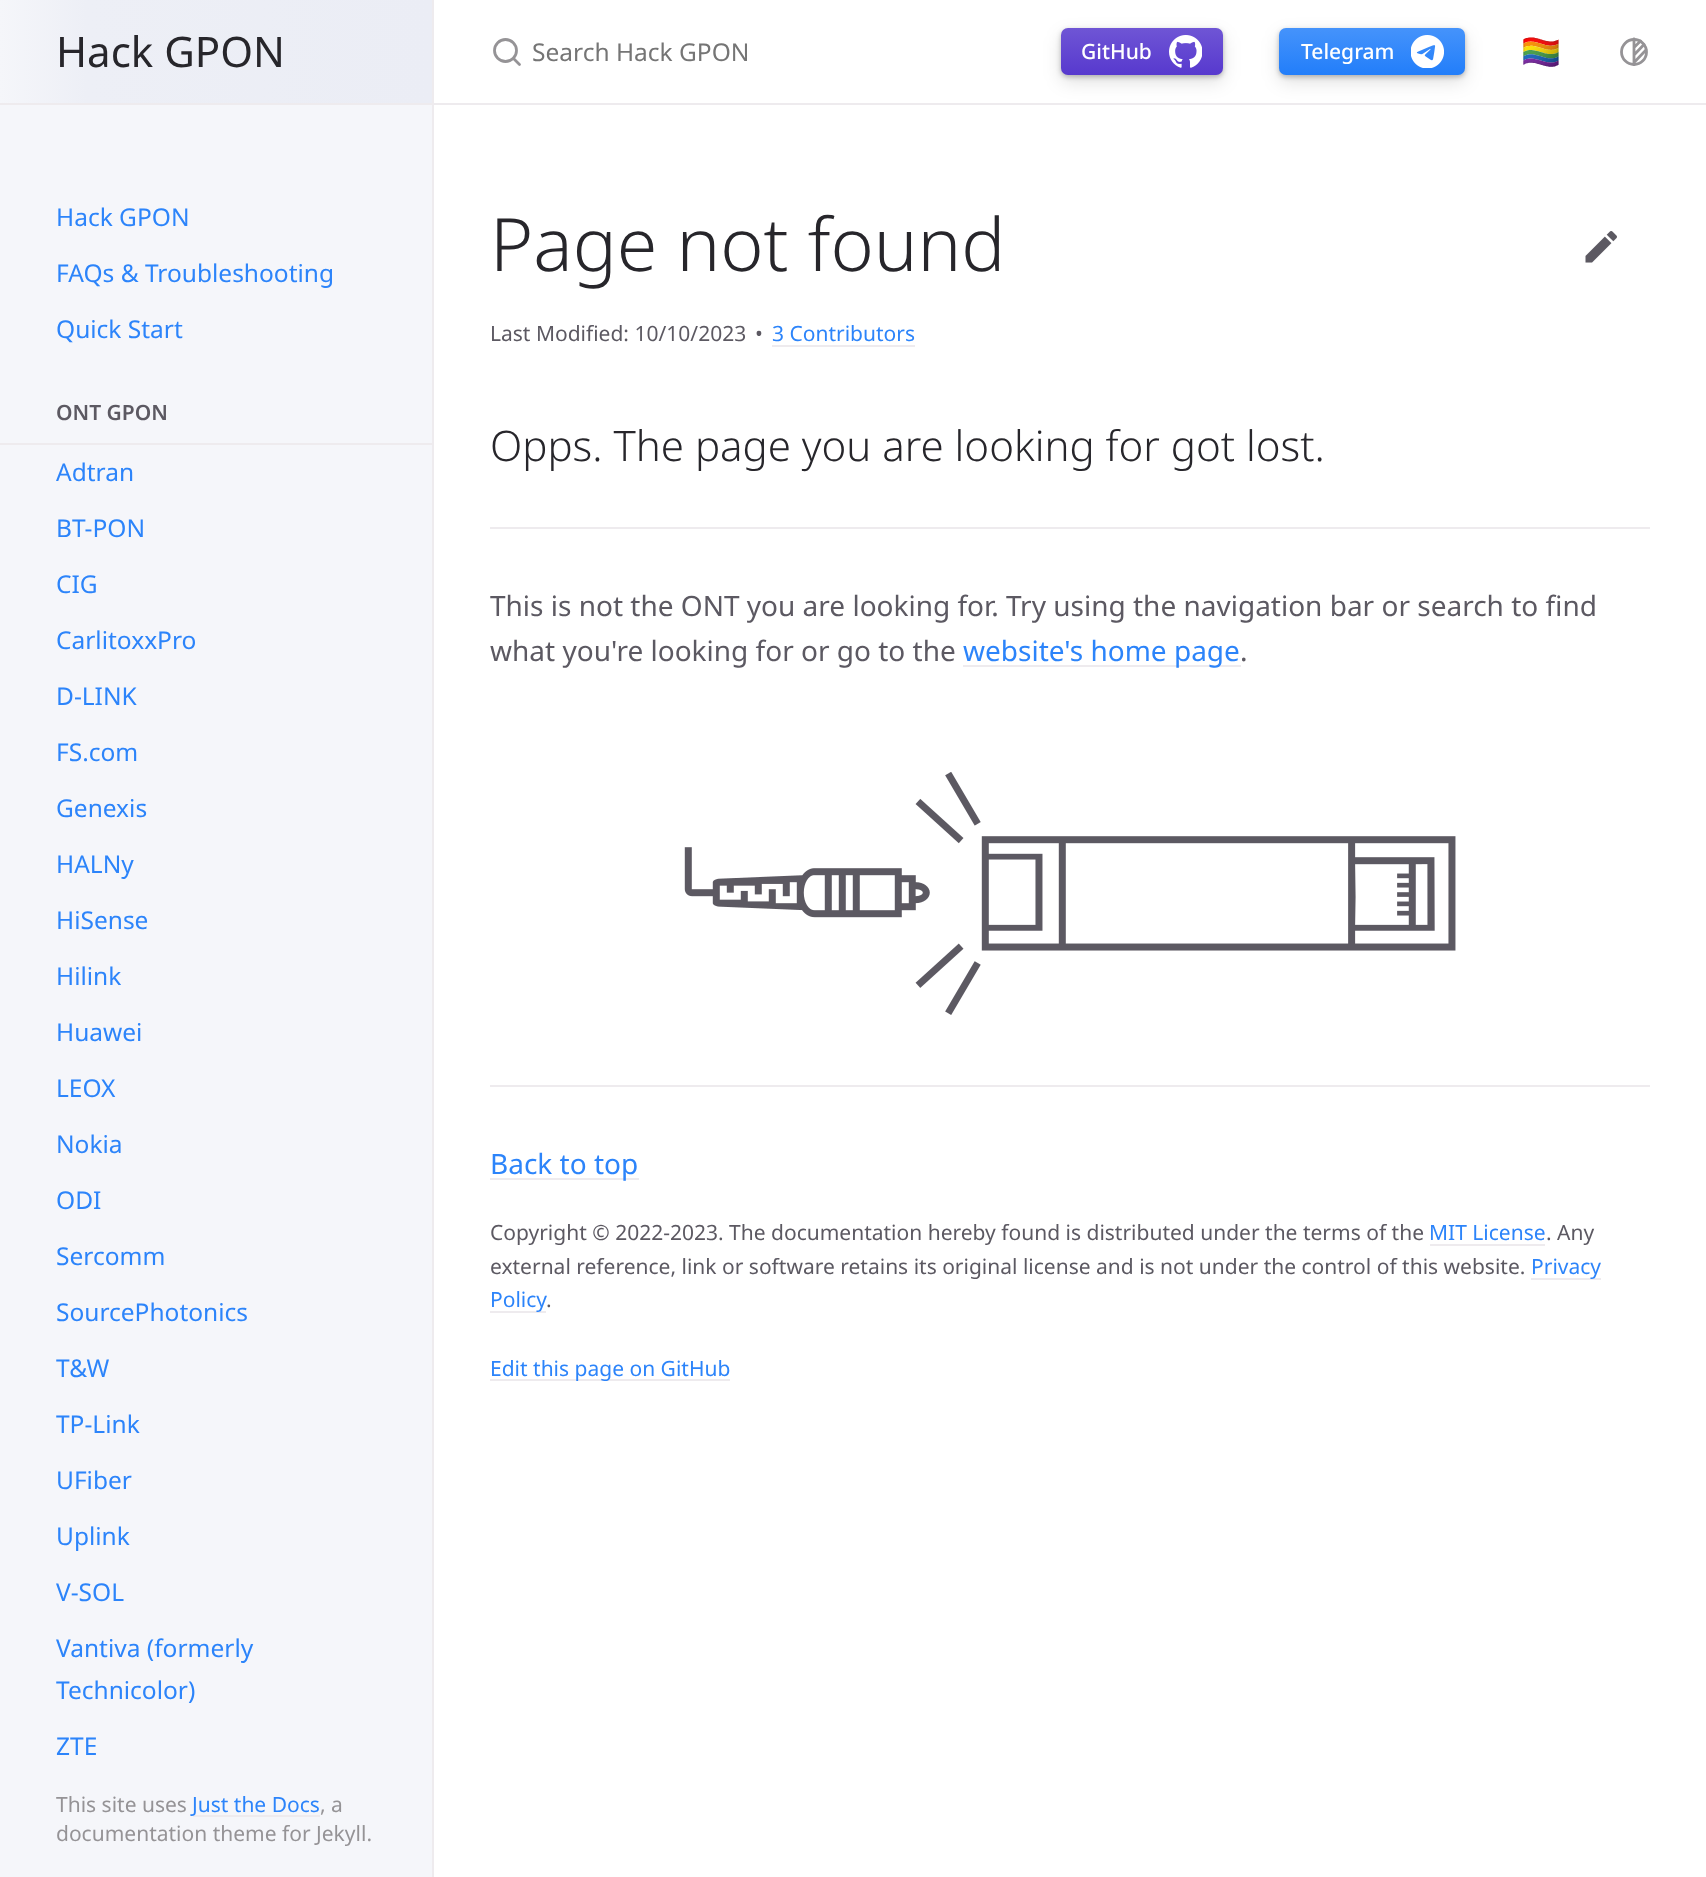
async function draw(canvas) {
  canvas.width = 1706;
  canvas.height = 1877;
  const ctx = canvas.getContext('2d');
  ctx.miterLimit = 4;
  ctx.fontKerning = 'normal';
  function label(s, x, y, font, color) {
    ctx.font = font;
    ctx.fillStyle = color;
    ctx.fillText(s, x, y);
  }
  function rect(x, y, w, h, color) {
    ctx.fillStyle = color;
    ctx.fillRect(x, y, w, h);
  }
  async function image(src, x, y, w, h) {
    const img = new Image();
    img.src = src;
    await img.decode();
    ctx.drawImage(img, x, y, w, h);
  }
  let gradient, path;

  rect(0, 0, 1706, 1877, '#fff');
  rect(0, 105, 432, 1772, '#f5f6fa');
  rect(432, 0, 2, 1877, '#eeebee');
  rect(0, 103, 432, 2, '#eeebee');
  gradient = ctx.createLinearGradient(432, 52, 0, 52);
  gradient.addColorStop(0, '#ebedf5');
  gradient.addColorStop(0.8, '#edeff6');
  gradient.addColorStop(1, '#f5f6fa');
  ctx.fillStyle = gradient;
  ctx.fillRect(0, 0, 432, 103);
  label('Hack GPON', 56, 67, '42px Noto Sans', '#27262b');
  label('Hack GPON', 56, 226, '24.5px Noto Sans', '#2c84fa');
  label('FAQs & Troubleshooting', 56, 282, '24.5px Noto Sans', '#2c84fa');
  label('Quick Start', 56, 338, '24.5px Noto Sans', '#2c84fa');
  rect(0, 443, 432, 2, '#eeebee');
  label('ONT GPON', 56, 420, '600 21px Noto Sans', '#5c5962');
  label('Adtran', 56, 481, '24.5px Noto Sans', '#2c84fa');
  label('BT-PON', 56, 537, '24.5px Noto Sans', '#2c84fa');
  label('CIG', 56, 593, '24.5px Noto Sans', '#2c84fa');
  label('CarlitoxxPro', 56, 649, '24.5px Noto Sans', '#2c84fa');
  label('D-LINK', 56, 705, '24.5px Noto Sans', '#2c84fa');
  label('FS.com', 56, 761, '24.5px Noto Sans', '#2c84fa');
  label('Genexis', 56, 817, '24.5px Noto Sans', '#2c84fa');
  label('HALNy', 56, 873, '24.5px Noto Sans', '#2c84fa');
  label('HiSense', 56, 929, '24.5px Noto Sans', '#2c84fa');
  label('Hilink', 56, 985, '24.5px Noto Sans', '#2c84fa');
  label('Huawei', 56, 1041, '24.5px Noto Sans', '#2c84fa');
  label('LEOX', 56, 1097, '24.5px Noto Sans', '#2c84fa');
  label('Nokia', 56, 1153, '24.5px Noto Sans', '#2c84fa');
  label('ODI', 56, 1209, '24.5px Noto Sans', '#2c84fa');
  label('Sercomm', 56, 1265, '24.5px Noto Sans', '#2c84fa');
  label('SourcePhotonics', 56, 1321, '24.5px Noto Sans', '#2c84fa');
  label('T&W', 56, 1377, '24.5px Noto Sans', '#2c84fa');
  label('TP-Link', 56, 1433, '24.5px Noto Sans', '#2c84fa');
  label('UFiber', 56, 1489, '24.5px Noto Sans', '#2c84fa');
  label('Uplink', 56, 1545, '24.5px Noto Sans', '#2c84fa');
  label('V-SOL', 56, 1601, '24.5px Noto Sans', '#2c84fa');
  label('Vantiva (formerly', 56, 1657, '24.5px Noto Sans', '#2c84fa');
  label('Technicolor)', 56, 1699, '24.5px Noto Sans', '#2c84fa');
  label('ZTE', 56, 1755, '24.5px Noto Sans', '#2c84fa');
  label('This site uses', 56, 1812, '21px Noto Sans', '#959396');
  rect(193, 1815, 127, 2, '#eeebee');
  label('Just the Docs', 192, 1812, '21px Noto Sans', '#2c84fa');
  label(', a', 320, 1812, '21px Noto Sans', '#959396');
  label('documentation theme for Jekyll.', 56, 1841, '21px Noto Sans', '#959396');
  rect(434, 103, 1272, 2, '#eeebee');
  ctx.beginPath();
  ctx.arc(505.5, 50.5, 11, 0, 2 * Math.PI);
  ctx.strokeStyle = '#959396';
  ctx.lineWidth = 2.8;
  ctx.stroke();
  path = new Path2D('M519.5 64.5L513.5 58.5');
  ctx.lineCap = 'round';
  ctx.lineJoin = 'round';
  ctx.stroke(path);
  label('Search Hack GPON', 532, 61, '24.5px Noto Sans', '#757575');
  ctx.fillStyle = '#0000001f';
  ctx.filter = 'blur(9px)';
  ctx.beginPath();
  ctx.roundRect(1061, 35, 162, 47, 7);
  ctx.fill();
  ctx.filter = 'none';
  ctx.fillStyle = '#00000040';
  ctx.filter = 'blur(2.5px)';
  ctx.beginPath();
  ctx.roundRect(1061, 30, 162, 47, 7);
  ctx.fill();
  ctx.filter = 'none';
  gradient = ctx.createLinearGradient(1142, 28, 1142, 75);
  gradient.addColorStop(0, '#6f55d5');
  gradient.addColorStop(1, '#5739ce');
  ctx.fillStyle = gradient;
  ctx.beginPath();
  ctx.roundRect(1061, 28, 162, 47, 7);
  ctx.fill();
  label('GitHub', 1081, 59, '500 21px Noto Sans', '#fff');
  await image('assets/img1.png', 1169, 35, 33, 33);
  ctx.fillStyle = '#0000001f';
  ctx.filter = 'blur(9px)';
  ctx.beginPath();
  ctx.roundRect(1279, 35, 186, 47, 7);
  ctx.fill();
  ctx.filter = 'none';
  ctx.fillStyle = '#00000040';
  ctx.filter = 'blur(2.5px)';
  ctx.beginPath();
  ctx.roundRect(1279, 30, 186, 47, 7);
  ctx.fill();
  ctx.filter = 'none';
  gradient = ctx.createLinearGradient(1372, 28, 1372, 75);
  gradient.addColorStop(0, '#4593fb');
  gradient.addColorStop(1, '#227efa');
  ctx.fillStyle = gradient;
  ctx.beginPath();
  ctx.roundRect(1279, 28, 186, 47, 7);
  ctx.fill();
  label('Telegram', 1301, 59, '500 21px Noto Sans', '#fff');
  await image('assets/img2.png', 1411, 35, 33, 33);
  label('🏳️‍🌈', 1521, 63, '32px Noto Color Emoji', '#2c84fa');
  ctx.beginPath();
  ctx.arc(1634, 52, 12.5, 0, 2 * Math.PI);
  ctx.stroke();
  path = new Path2D('M1634 39V64.5M1634 47.5L1640.5 41M1634 55L1644 44.5M1634 62.5L1646 50');
  ctx.stroke(path);
  label('Page not found', 490, 271, '300 73.5px Noto Sans', '#27262b');
  await image('assets/img3.png', 1585, 231, 32, 32);
  label('Last Modified: 10/10/2023', 490, 341, '21px Noto Sans', '#5c5962');
  label('•', 755, 341, '21px Noto Sans', '#5c5962');
  label('3 Contributors', 772, 341, '21px Noto Sans', '#2c84fa');
  rect(772, 345, 143, 2, '#eeebee');
  label('Opps. The page you are looking for got lost.', 490, 461, '300 42px Noto Sans', '#27262b');
  rect(490, 527, 1160, 2, '#eeebee');
  label('This is not the ONT you are looking for. Try using the navigation bar or search to find', 490, 616, '28px Noto Sans', '#5c5962');
  label('what you\'re looking for or go to the', 490, 661, '28px Noto Sans', '#5c5962');
  rect(963, 665, 278, 2, '#eeebee');
  label('website\'s home page', 963, 661, '28px Noto Sans', '#2c84fa');
  label('.', 1240, 661, '28px Noto Sans', '#5c5962');
  await image('assets/img4.png', 684, 772, 772, 243);
  rect(490, 1085, 1160, 2, '#eeebee');
  rect(490, 1178, 149, 2, '#eeebee');
  label('Back to top', 490, 1174, '28px Noto Sans', '#2c84fa');
  label('Copyright © 2022-2023. The documentation hereby found is distributed under the terms of the', 490, 1240, '21px Noto Sans', '#5c5962');
  label('MIT License', 1429, 1240, '21px Noto Sans', '#2c84fa');
  rect(1430, 1244, 115, 2, '#eeebee');
  label('. Any', 1546, 1240, '21px Noto Sans', '#5c5962');
  label('external reference, link or software retains its original license and is not under the control of this website.', 490, 1274, '21px Noto Sans', '#5c5962');
  rect(1531, 1278, 70, 2, '#eeebee');
  label('Privacy', 1531, 1274, '21px Noto Sans', '#2c84fa');
  rect(490, 1311, 56, 2, '#eeebee');
  label('Policy', 490, 1307, '21px Noto Sans', '#2c84fa');
  label('.', 546, 1307, '21px Noto Sans', '#5c5962');
  rect(490, 1379, 240, 2, '#eeebee');
  label('Edit this page on GitHub', 490, 1376, '21px Noto Sans', '#2c84fa');
}

draw(document.querySelector('canvas'));
